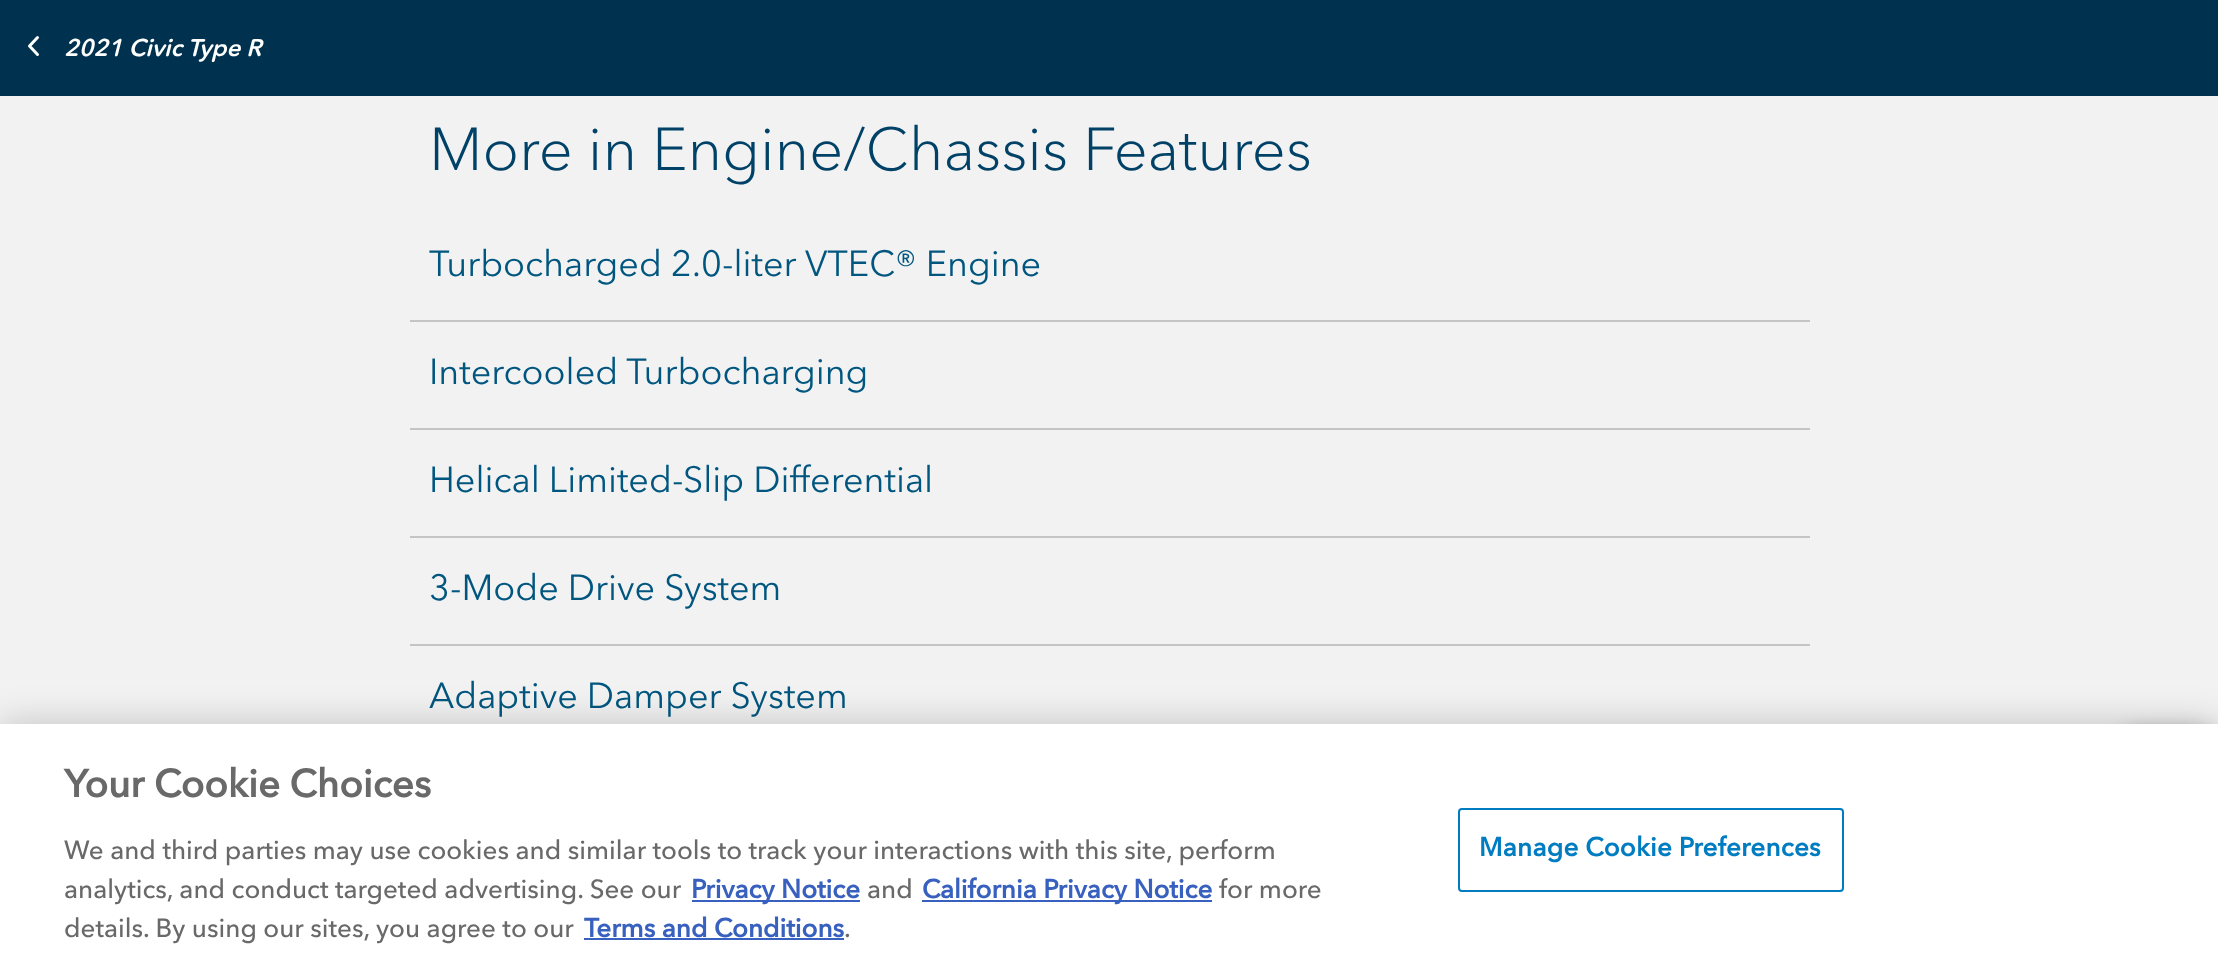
async function draw(canvas) {
  canvas.width = 2218;
  canvas.height = 969;
  const ctx = canvas.getContext('2d');
  ctx.miterLimit = 4;
  ctx.fontKerning = 'normal';
  function label(s, x, y, font, color) {
    ctx.font = font;
    ctx.fillStyle = color;
    ctx.fillText(s, x, y);
  }
  function rect(x, y, w, h, color) {
    ctx.fillStyle = color;
    ctx.fillRect(x, y, w, h);
  }
  let path;

  rect(0, 0, 2218, 969, '#f2f2f2');
  rect(0, 0, 2218, 96, '#00324f');
  path = new Path2D('M37.5 54.5L29.5 46L37.5 37.5');
  ctx.strokeStyle = '#fff';
  ctx.lineWidth = 3;
  ctx.lineCap = 'round';
  ctx.lineJoin = 'round';
  ctx.stroke(path);
  label('2021 Civic Type R', 64, 56, 'italic 600 24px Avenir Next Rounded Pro', '#fff');
  label('More in Engine/Chassis Features', 429, 170, '300 60px Avenir Next', '#004267');
  rect(410, 320, 1400, 2, '#c4c4c4');
  label('Turbocharged 2.0-liter VTEC® Engine', 429, 276, '36px Avenir Next', '#00567f');
  rect(410, 428, 1400, 2, '#c4c4c4');
  label('Intercooled Turbocharging', 429, 384, '36px Avenir Next', '#00567f');
  rect(410, 536, 1400, 2, '#c4c4c4');
  label('Helical Limited-Slip Differential', 429, 492, '36px Avenir Next', '#00567f');
  rect(410, 644, 1400, 2, '#c4c4c4');
  label('3-Mode Drive System', 429, 600, '36px Avenir Next', '#00567f');
  label('Adaptive Damper System', 429, 708, '36px Avenir Next', '#00567f');
  ctx.fillStyle = '#00000080';
  ctx.filter = 'blur(10px)';
  ctx.beginPath();
  ctx.roundRect(2118, 734, 100, 100, 20);
  ctx.fill();
  ctx.filter = 'none';
  ctx.fillStyle = '#00000033';
  ctx.filter = 'blur(18px)';
  ctx.beginPath();
  ctx.rect(0, 724, 2218, 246);
  ctx.fill();
  ctx.filter = 'none';
  rect(0, 724, 2218, 245, '#fff');
  label('Your Cookie Choices', 64, 797, 'bold 38.5px Avenir Next', '#696969');
  label('We and third parties may use cookies and similar tools to track your interactions with this site, perform', 64, 859, '500 26px Avenir Next', '#696969');
  label('analytics, and conduct targeted advertising. See our', 64, 898, '500 26px Avenir Next', '#696969');
  rect(692, 900, 168, 2, '#3860be');
  label('Privacy Notice', 691, 898, 'bold 26px Avenir Next', '#3860be');
  label('and', 867, 898, '500 26px Avenir Next', '#696969');
  rect(922, 900, 290, 2, '#3860be');
  label('California Privacy Notice', 922, 898, 'bold 26px Avenir Next', '#3860be');
  label('for more', 1219, 898, '500 26px Avenir Next', '#696969');
  label('details. By using our sites, you agree to our', 64, 937, '500 26px Avenir Next', '#696969');
  label('Terms and Conditions', 584, 937, 'bold 26px Avenir Next', '#3860be');
  rect(584, 938, 260, 2, '#3860be');
  label('.', 844, 937, '500 26px Avenir Next', '#696969');
  ctx.beginPath();
  ctx.roundRect(1459, 809, 384, 82, 3);
  ctx.strokeStyle = '#007cc0';
  ctx.lineWidth = 2;
  ctx.lineJoin = 'miter';
  ctx.stroke();
  ctx.letterSpacing = '0.25px';
  label('Manage Cookie Preferences', 1479, 856, 'bold 26px Avenir Next', '#007cc0');
}

draw(document.querySelector('canvas'));
